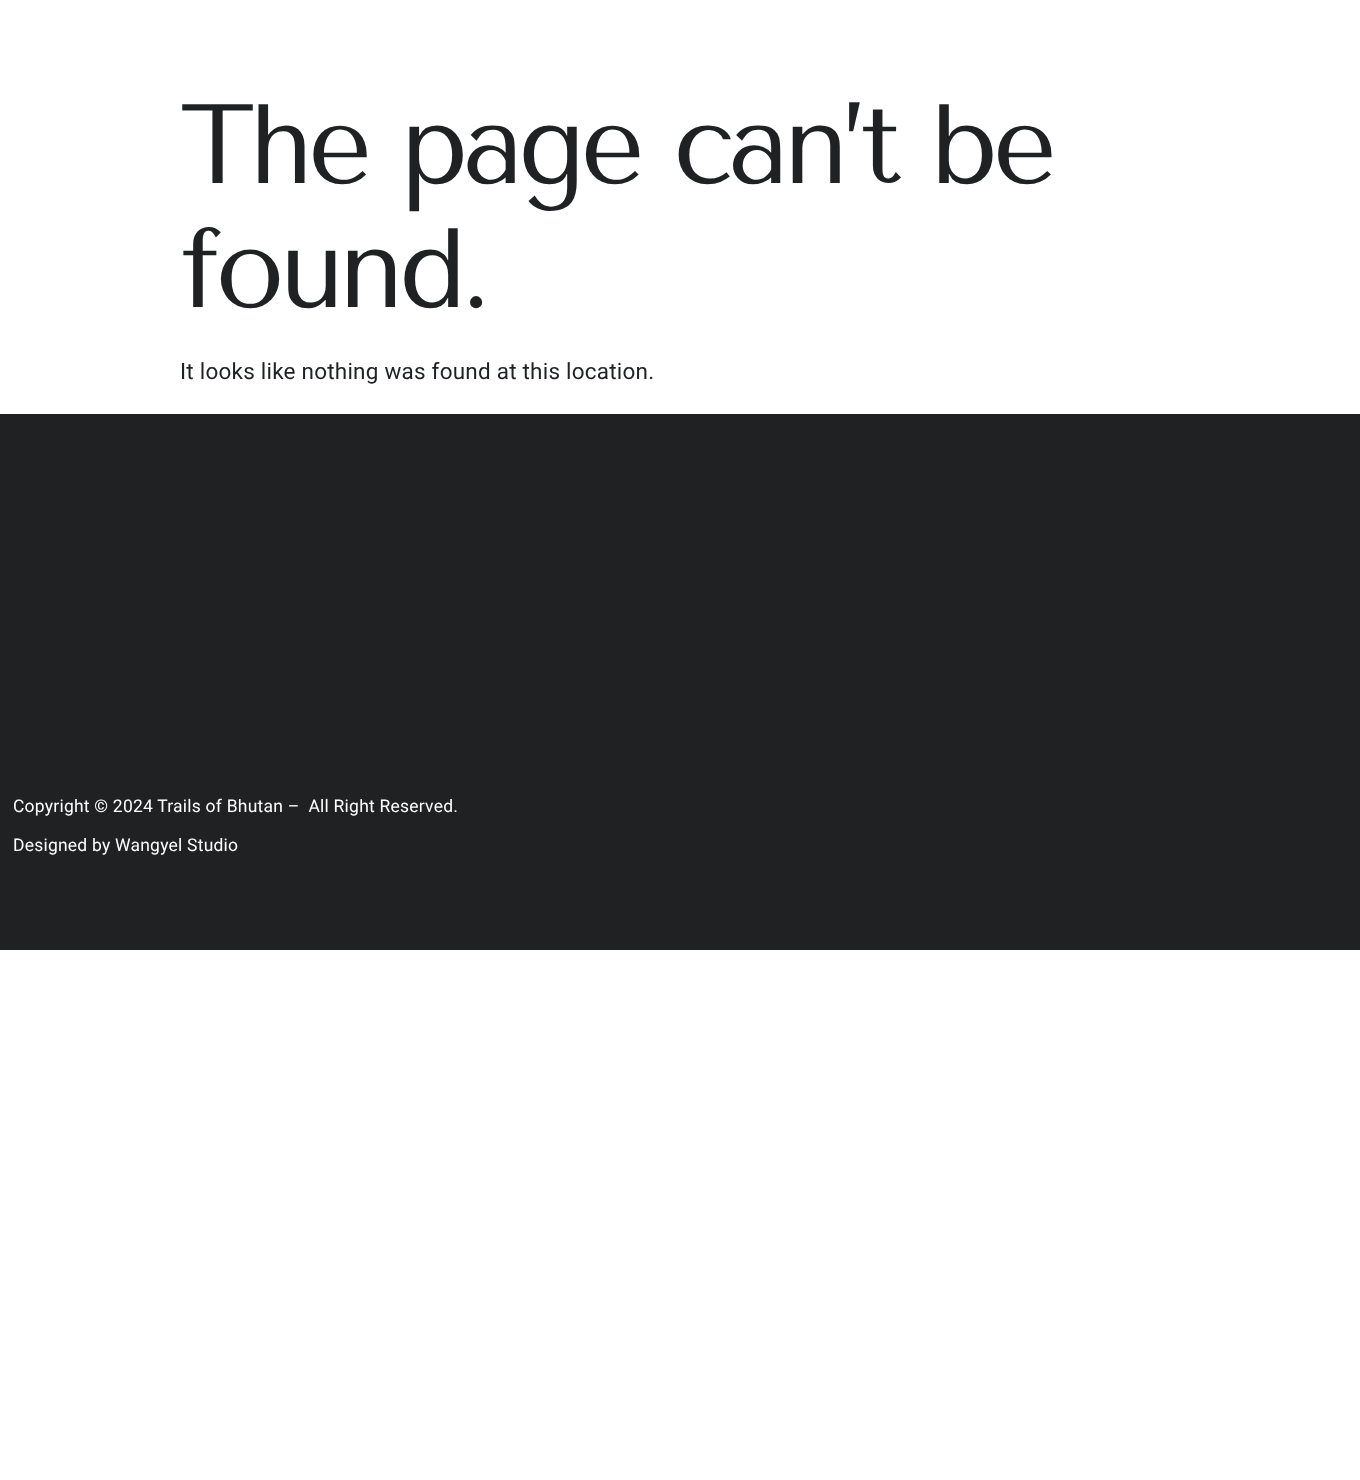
async function draw(canvas) {
  canvas.width = 1360;
  canvas.height = 1480;
  const ctx = canvas.getContext('2d');
  ctx.miterLimit = 4;
  ctx.fontKerning = 'normal';
  function label(s, x, y, font, color) {
    ctx.font = font;
    ctx.fillStyle = color;
    ctx.fillText(s, x, y);
  }
  function rect(x, y, w, h, color) {
    ctx.fillStyle = color;
    ctx.fillRect(x, y, w, h);
  }

  rect(0, 0, 1360, 1480, '#fff');
  ctx.letterSpacing = '-5.6px';
  label('The page can’t be', 180, 183, '112.5px Tenor Sans', '#1f2123');
  label('found.', 180, 307, '112.5px Tenor Sans', '#1f2123');
  ctx.letterSpacing = '0.22px';
  label('It looks like nothing was found at this location.', 180, 379, '22.5px Roboto', '#1f2123');
  rect(0, 414, 1360, 536, '#1f2123');
  label('Copyright © 2024 Trails of Bhutan –  All Right Reserved.', 13, 812, '17.5px Roboto', '#fff');
  label('Designed by Wangyel Studio', 13, 851, '17.5px Roboto', '#fff');
}

draw(document.querySelector('canvas'));
